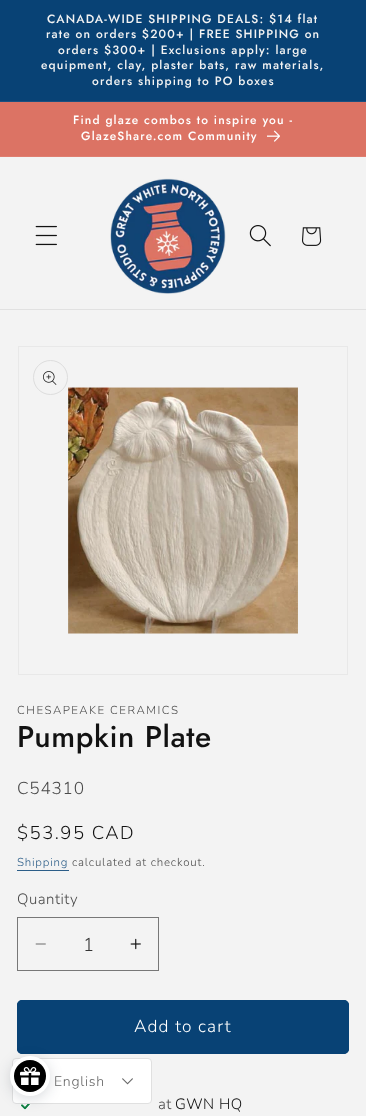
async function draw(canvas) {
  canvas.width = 366;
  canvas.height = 1116;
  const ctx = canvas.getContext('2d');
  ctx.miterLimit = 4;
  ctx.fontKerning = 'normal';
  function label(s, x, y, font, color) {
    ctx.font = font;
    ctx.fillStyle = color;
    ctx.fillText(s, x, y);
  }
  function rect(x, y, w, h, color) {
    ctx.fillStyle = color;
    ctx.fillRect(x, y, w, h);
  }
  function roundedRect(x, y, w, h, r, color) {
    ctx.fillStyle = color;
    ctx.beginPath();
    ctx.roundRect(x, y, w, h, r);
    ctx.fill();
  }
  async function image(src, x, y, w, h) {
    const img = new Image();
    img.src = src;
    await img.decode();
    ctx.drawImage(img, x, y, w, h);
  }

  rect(0, 0, 366, 1116, '#f3f3f3');
  rect(0, 0, 366, 101, '#084275');
  rect(0, 101, 366, 1, '#1b507f');
  ctx.letterSpacing = '1.15px';
  label('CANADA-WIDE SHIPPING DEALS: $14 flat', 47, 23, '500 12px Jost', '#f3f3f3');
  label('rate on orders $200+ | FREE SHIPPING on', 46, 38, '500 12px Jost', '#f3f3f3');
  label('orders $300+ | Exclusions apply: large', 58, 54, '500 12px Jost', '#f3f3f3');
  label('equipment, clay, plaster bats, raw materials,', 41, 69, '500 12px Jost', '#f3f3f3');
  label('orders shipping to PO boxes', 92, 85, '500 12px Jost', '#f3f3f3');
  rect(0, 102, 366, 54, '#dc7364');
  rect(0, 156, 366, 1, '#df7e70');
  label('Find glaze combos to inspire you -', 73, 124, '500 12px Jost', '#fff');
  label('GlazeShare.com Community', 81, 140, '500 12px Jost', '#fff');
  await image('assets/img1.png', 267, 130, 13, 12);
  rect(0, 309, 366, 1, '#e1e1e1');
  await image('assets/img2.png', 35, 225, 22, 21);
  await image('assets/img3.png', 110, 178, 116, 116);
  await image('assets/img4.png', 249, 225, 22, 22);
  await image('assets/img5.png', 302, 227, 20, 19);
  ctx.strokeStyle = '#e8e8e8';
  ctx.strokeRect(18.5, 346.5, 329, 328);
  ctx.beginPath();
  ctx.arc(50.5, 377.5, 17, 0, 2 * Math.PI);
  ctx.strokeStyle = '#ddd';
  ctx.stroke();
  await image('assets/img6.png', 43, 371, 14, 14);
  await image('assets/img7.png', 68, 387, 230, 247);
  ctx.letterSpacing = '1.5px';
  label('CHESAPEAKE CERAMICS', 17, 714, '300 11.5px Nunito', '#4a4a4a');
  ctx.letterSpacing = '0.6px';
  label('Pumpkin Plate', 17, 747, '500 30px Jost', '#121212');
  ctx.letterSpacing = '0.75px';
  label('C54310', 17, 794, '300 17.25px Nunito', '#4a4a4a');
  ctx.letterSpacing = '1.5px';
  label('$53.95 CAD', 17, 839, '300 18.5px Nunito', '#121212');
  ctx.letterSpacing = '0.8px';
  label('Shipping', 17, 866, '300 11.5px Nunito', '#2b5d88');
  rect(17, 870, 52, 1, '#2b5d88');
  label('calculated at checkout.', 72, 866, '300 11.5px Nunito', '#4a4a4a');
  ctx.letterSpacing = '0.5px';
  label('Quantity', 17, 904, '300 15px Nunito', '#4a4a4a');
  await image('assets/img8.png', 35, 943, 11, 2);
  await image('assets/img9.png', 130, 938, 11, 12);
  ctx.strokeStyle = '#777';
  ctx.strokeRect(17.5, 917.5, 141, 53);
  ctx.letterSpacing = '0px';
  label('1', 83, 951, '300 18.5px Nunito', '#343434');
  roundedRect(17, 1000, 332, 54, 5, '#084275');
  ctx.beginPath();
  ctx.roundRect(17.5, 1000.5, 331, 53, 4.5);
  ctx.strokeStyle = '#084275';
  ctx.stroke();
  ctx.letterSpacing = '1.15px';
  label('Add to cart', 134, 1032, '300 17.25px Nunito', '#fff');
  await image('assets/img10.png', 20, 1104, 12, 6);
  ctx.letterSpacing = '0.5px';
  label('at', 158, 1109, '300 15px Nunito', '#4a4a4a');
  label('GWN HQ', 175, 1109, '300 15px Nunito', '#121212');
  ctx.fillStyle = '#fff';
  ctx.beginPath();
  ctx.roundRect(12.5, 1058.5, 139, 45, 3.5);
  ctx.fill();
  ctx.strokeStyle = '#e0e0e0';
  ctx.stroke();
  ctx.fillStyle = '#11223329';
  ctx.filter = 'blur(7px)';
  ctx.beginPath();
  ctx.roundRect(10, 1059, 40, 40, 20);
  ctx.fill();
  ctx.filter = 'none';
  ctx.fillStyle = '#fff';
  ctx.beginPath();
  ctx.arc(30, 1076, 20, 0, 2 * Math.PI);
  ctx.fill();
  ctx.fillStyle = '#000';
  ctx.beginPath();
  ctx.arc(30, 1076, 16, 0, 2 * Math.PI);
  ctx.fill();
  await image('assets/img11.png', 20, 1067, 20, 18);
  ctx.letterSpacing = '0.75px';
  label('English', 54, 1086, '300 14px Nunito', '#666');
  await image('assets/img12.png', 122, 1078, 11, 7);
}

draw(document.querySelector('canvas'));
